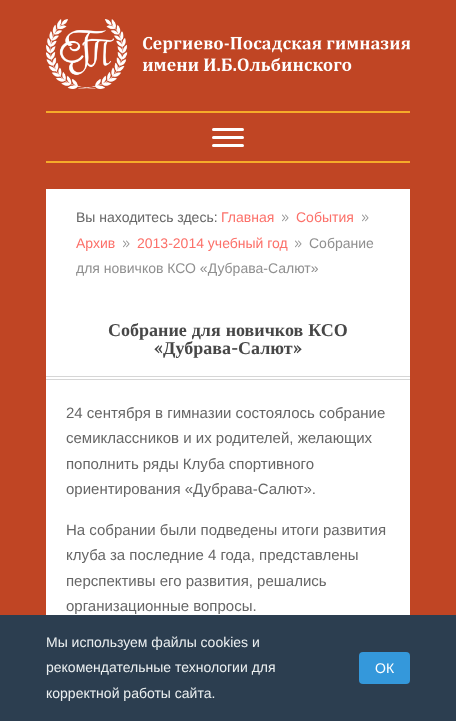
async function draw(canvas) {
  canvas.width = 456;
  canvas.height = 721;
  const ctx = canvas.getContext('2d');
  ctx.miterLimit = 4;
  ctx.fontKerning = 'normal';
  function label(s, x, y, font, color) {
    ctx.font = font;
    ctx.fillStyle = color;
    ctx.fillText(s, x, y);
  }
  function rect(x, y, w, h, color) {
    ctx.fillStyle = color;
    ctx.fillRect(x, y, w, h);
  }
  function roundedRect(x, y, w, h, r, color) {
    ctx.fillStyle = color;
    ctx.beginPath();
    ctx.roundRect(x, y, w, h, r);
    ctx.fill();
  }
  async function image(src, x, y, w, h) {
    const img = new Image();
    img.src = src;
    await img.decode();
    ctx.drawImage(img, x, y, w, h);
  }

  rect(0, 0, 456, 721, '#c04524');
  await image('assets/img1.png', 46, 19, 364, 70);
  rect(46, 111, 364, 2, '#f5ab2a');
  rect(46, 161, 364, 2, '#f5ab2a');
  roundedRect(212, 128, 32, 3, 1.5, '#fff');
  roundedRect(212, 136, 32, 3, 1.5, '#fff');
  roundedRect(212, 144, 32, 3, 1.5, '#fff');
  rect(46, 189, 364, 190, '#fff');
  label('Главная', 221, 222, '14px Liberation Sans', '#fc7069');
  await image('assets/img2.png', 282, 214, 7, 8);
  label('События', 296, 222, '14px Liberation Sans', '#fc7069');
  await image('assets/img2.png', 362, 214, 7, 8);
  label('Архив', 76, 248, '14px Liberation Sans', '#fc7069');
  await image('assets/img2.png', 123, 240, 7, 8);
  label('2013-2014 учебный год', 137, 248, '14px Liberation Sans', '#fc7069');
  await image('assets/img2.png', 295, 240, 7, 8);
  label('Собрание', 309, 248, '14px Liberation Sans', '#8f8f8f');
  label('для новичков КСО «Дубрава-Салют»', 76, 273, '14px Liberation Sans', '#8f8f8f');
  label('Вы находитесь здесь:', 76, 222, '14px Liberation Sans', '#666');
  rect(46, 376, 364, 1, '#d6d6d6');
  rect(46, 379, 364, 1, '#d6d6d6');
  ctx.wordSpacing = '0.5px';
  label('Собрание для новичков КСО', 108, 336, 'bold 18px Liberation Serif', '#474747');
  ctx.wordSpacing = '0px';
  label('«', 154, 354, 'bold 18px PT Serif', '#474747');
  label('Дубрава', 163, 354, 'bold 18px Liberation Serif', '#474747');
  label('-', 231, 354, 'bold 18px PT Serif', '#474747');
  label('Салют', 238, 354, 'bold 18px Liberation Serif', '#474747');
  label('»', 293, 354, 'bold 18px PT Serif', '#474747');
  rect(46, 380, 364, 235, '#fff');
  label('24 сентября в гимназии состоялось собрание', 66, 418, '15px Liberation Sans', '#666');
  label('семиклассников и их родителей, желающих', 66, 443, '15px Liberation Sans', '#666');
  label('пополнить ряды Клуба спортивного', 66, 469, '15px Liberation Sans', '#666');
  label('ориентирования «Дубрава-Салют».', 66, 494, '15px Liberation Sans', '#666');
  label('На собрании были подведены итоги развития', 66, 535, '15px Liberation Sans', '#666');
  label('клуба за последние 4 года, представлены', 66, 560, '15px Liberation Sans', '#666');
  label('перспективы его развития, решались', 66, 586, '15px Liberation Sans', '#666');
  label('организационные вопросы.', 66, 611, '15px Liberation Sans', '#666');
  rect(0, 615, 456, 106, '#2c3e50');
  label('Мы используем файлы cookies и', 46, 647, '14px Liberation Sans', '#ecf0f1');
  label('рекомендательные технологии для', 46, 672, '14px Liberation Sans', '#ecf0f1');
  roundedRect(359, 652, 51, 32, 4, '#3498db');
  label('ОК', 375, 673, '14px Liberation Sans', '#fff');
  label('корректной работы сайта.', 46, 698, '14px Liberation Sans', '#ecf0f1');
}

draw(document.querySelector('canvas'));
